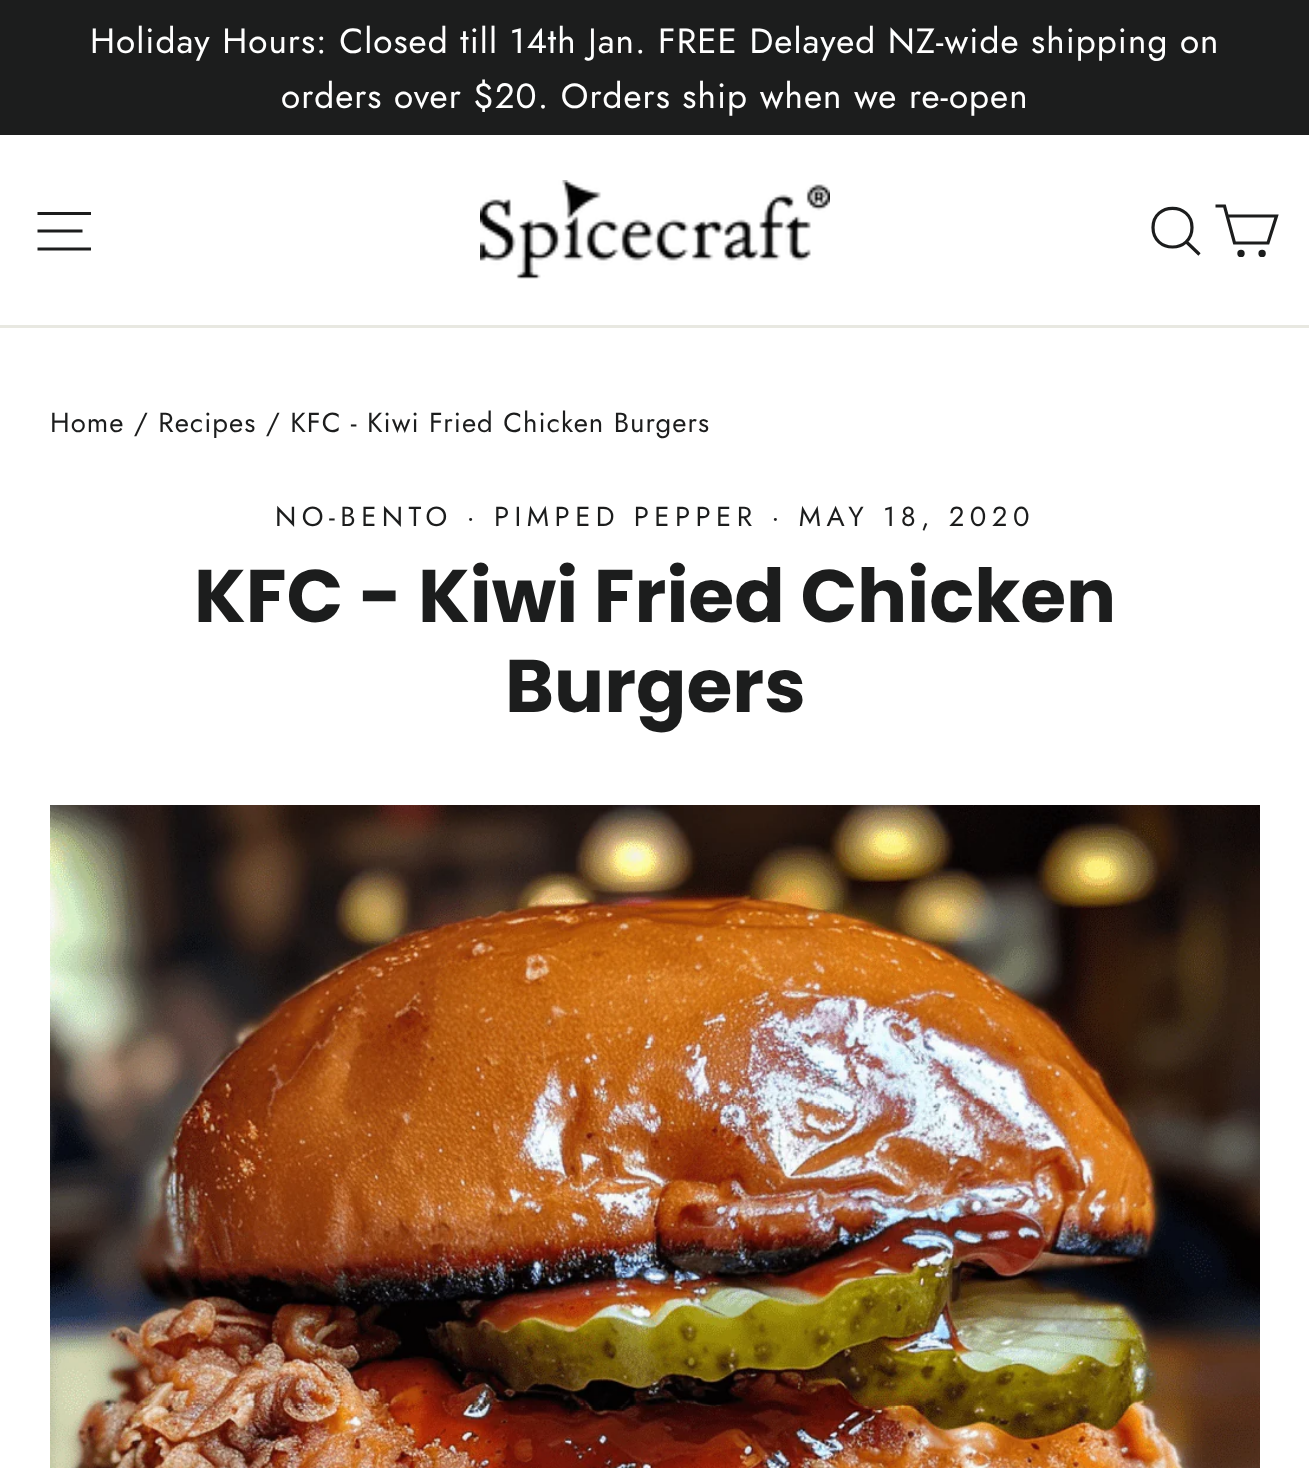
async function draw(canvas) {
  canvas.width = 1309;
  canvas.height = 1468;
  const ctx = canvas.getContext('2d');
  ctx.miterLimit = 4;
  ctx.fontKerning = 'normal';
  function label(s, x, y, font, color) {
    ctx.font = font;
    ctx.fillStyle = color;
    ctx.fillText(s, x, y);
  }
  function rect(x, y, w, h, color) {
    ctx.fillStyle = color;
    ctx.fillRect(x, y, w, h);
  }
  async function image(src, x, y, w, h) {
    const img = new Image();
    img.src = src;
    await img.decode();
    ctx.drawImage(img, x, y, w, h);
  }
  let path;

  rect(0, 0, 1309, 1468, '#fff');
  rect(0, 0, 1309, 135, '#1c1d1d');
  ctx.letterSpacing = '1.05px';
  label('Holiday Hours: Closed till 14th Jan. FREE Delayed NZ-wide shipping on', 90, 53, '35px Jost', '#fff');
  label('orders over $20. Orders ship when we re-open', 281, 108, '35px Jost', '#fff');
  rect(0, 325, 1309, 3, '#e8e8e1');
  path = new Path2D('M37.5 213.5H91M37.5 231H82.5M37.5 249H91');
  ctx.strokeStyle = '#1c1d1d';
  ctx.lineWidth = 3.2;
  ctx.stroke(path);
  await image('assets/img1.png', 480, 180, 350, 99);
  path = new Path2D('M1192 227.5C1192 253.5 1153 253.5 1153 227.5C1153 202 1192 202 1192 227.5ZM1199.5 254.5L1186.5 242');
  ctx.stroke(path);
  path = new Path2D('M1227.5 216H1276.5L1268 243H1234.5L1224.5 206H1215.5');
  ctx.stroke(path);
  ctx.fillStyle = '#1c1d1d';
  ctx.beginPath();
  ctx.arc(1241, 253.4, 2.1, 0, 2 * Math.PI);
  ctx.fill();
  ctx.stroke();
  ctx.beginPath();
  ctx.arc(1262.1, 253.4, 2.1, 0, 2 * Math.PI);
  ctx.fill();
  ctx.stroke();
  label('Home / Recipes / KFC - Kiwi Fried Chicken Burgers', 50, 432, '27.5px Jost', '#1c1d1d');
  ctx.letterSpacing = '5.5px';
  label('NO-BENTO · PIMPED PEPPER · MAY 18, 2020', 275, 526, '27.5px Jost', '#1c1d1d');
  ctx.letterSpacing = '0px';
  label('KFC - Kiwi Fried Chicken', 194, 622, 'bold 74.4px Poppins', '#1c1d1d');
  label('Burgers', 505, 712, 'bold 74.4px Poppins', '#1c1d1d');
  await image('assets/img2.png', 50, 805, 1210, 663);
}

draw(document.querySelector('canvas'));
